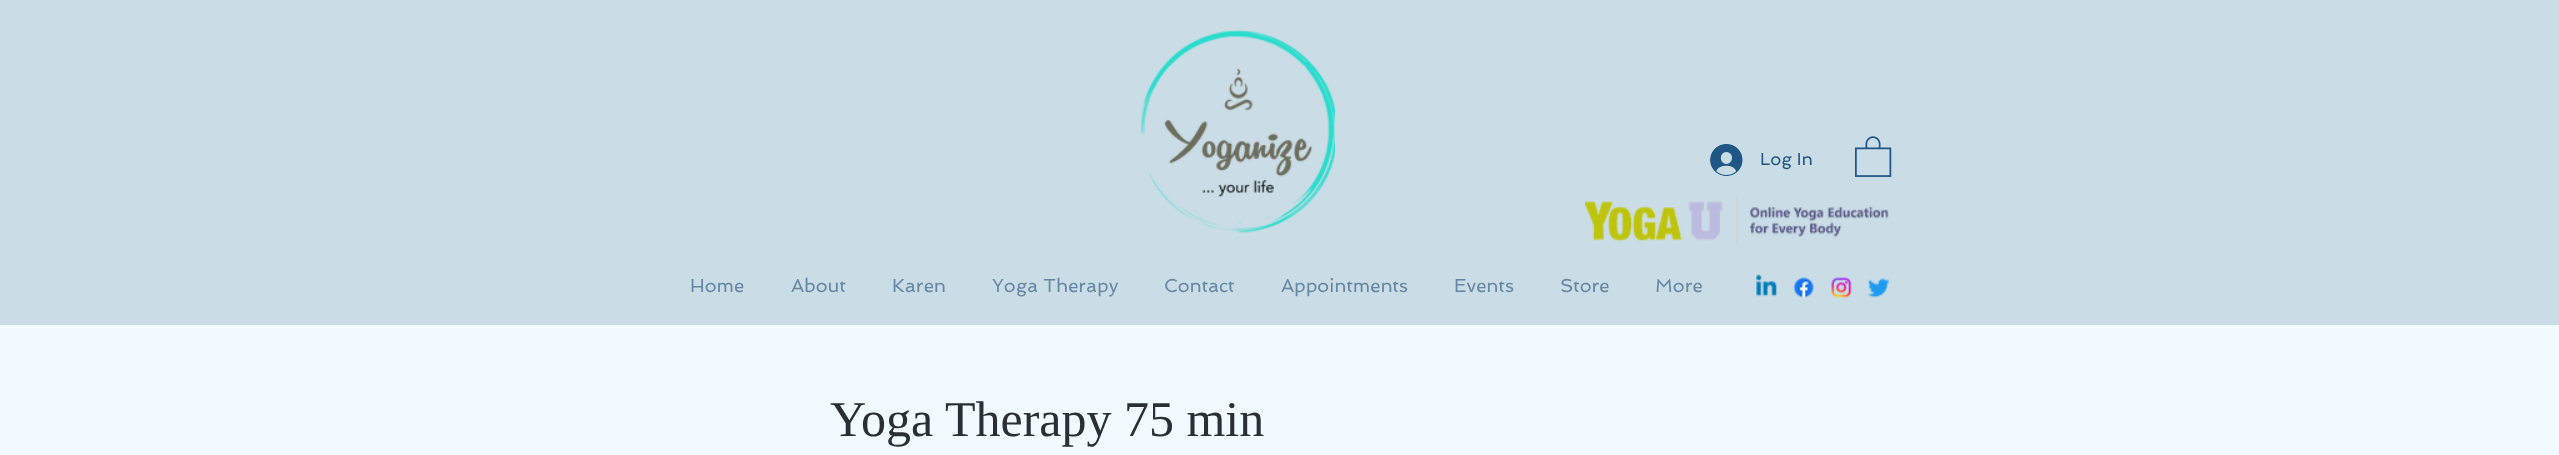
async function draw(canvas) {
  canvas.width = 2559;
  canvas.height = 455;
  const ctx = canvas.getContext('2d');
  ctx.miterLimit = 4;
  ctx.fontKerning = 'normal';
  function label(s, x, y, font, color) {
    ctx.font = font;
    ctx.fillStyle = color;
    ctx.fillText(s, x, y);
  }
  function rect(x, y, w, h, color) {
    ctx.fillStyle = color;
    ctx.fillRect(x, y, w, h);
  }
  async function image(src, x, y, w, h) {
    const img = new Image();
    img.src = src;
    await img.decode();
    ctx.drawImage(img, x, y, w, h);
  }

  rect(0, 0, 2559, 455, '#f0faff');
  rect(0, 0, 2559, 325, '#cadde6');
  await image('assets/img1.png', 1140, 30, 195, 203);
  await image('assets/img2.png', 1710, 144, 33, 32);
  label('Log In', 1760, 165, '17.5px Spinnaker', '#205685');
  await image('assets/img3.png', 1855, 136, 37, 41);
  await image('assets/img4.png', 1585, 196, 304, 50);
  label('Home', 690, 292, '18.75px Spinnaker', '#6587a4');
  label('About', 791, 292, '18.75px Spinnaker', '#6587a4');
  label('Karen', 892, 292, '18.75px Spinnaker', '#6587a4');
  label('Yoga Therapy', 992, 292, '18.75px Spinnaker', '#6587a4');
  label('Contact', 1164, 292, '18.75px Spinnaker', '#6587a4');
  label('Appointments', 1281, 292, '18.75px Spinnaker', '#6587a4');
  label('Events', 1454, 292, '18.75px Spinnaker', '#6587a4');
  label('Store', 1560, 292, '18.75px Spinnaker', '#6587a4');
  label('More', 1655, 292, '18.75px Spinnaker', '#6587a4');
  await image('assets/img5.png', 1756, 274, 21, 23);
  await image('assets/img6.png', 1793, 277, 21, 21);
  await image('assets/img7.png', 1831, 277, 21, 22);
  await image('assets/img8.png', 1867, 278, 23, 20);
  label('Yoga Therapy 75 min', 830, 436, '50px Liberation Serif', '#292f33');
}

draw(document.querySelector('canvas'));
